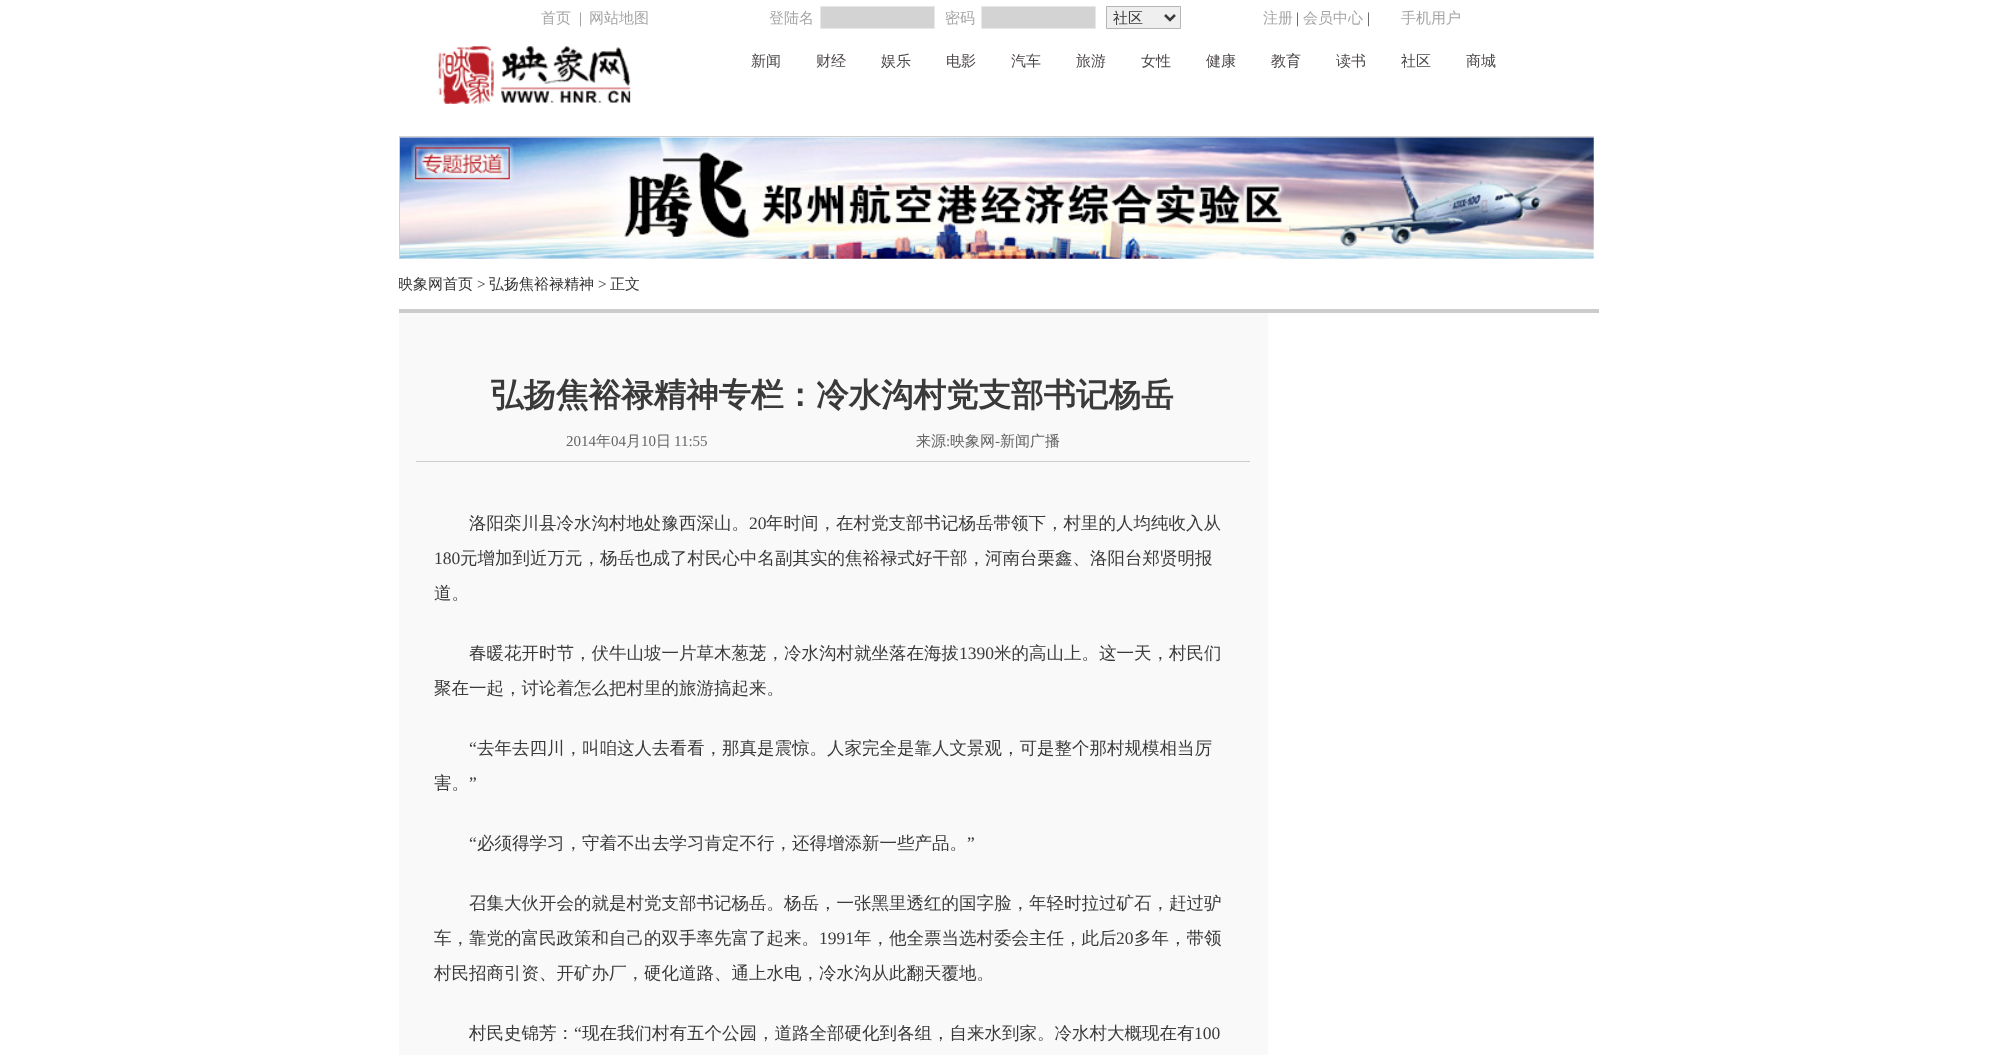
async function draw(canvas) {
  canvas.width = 1996;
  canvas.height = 1055;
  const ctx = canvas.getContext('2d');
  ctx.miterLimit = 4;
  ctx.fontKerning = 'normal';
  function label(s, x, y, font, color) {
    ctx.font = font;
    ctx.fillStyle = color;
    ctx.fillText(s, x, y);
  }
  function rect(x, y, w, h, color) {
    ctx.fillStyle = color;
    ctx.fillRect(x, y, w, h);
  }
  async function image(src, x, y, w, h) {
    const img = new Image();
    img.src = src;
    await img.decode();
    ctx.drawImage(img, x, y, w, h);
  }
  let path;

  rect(0, 0, 1996, 1055, '#fff');
  label('首页', 541, 23, '500 15px WenQuanYi Zen Hei', '#a7a5a5');
  label('|', 579, 23, '15px Liberation Serif', '#868585');
  label('网站地图', 589, 23, '500 15px WenQuanYi Zen Hei', '#a7a5a5');
  label('登陆名', 769, 23, '500 15px WenQuanYi Zen Hei', '#a7a5a5');
  ctx.fillStyle = '#d3d3d3';
  ctx.beginPath();
  ctx.rect(820.5, 6.5, 114, 22);
  ctx.fill();
  ctx.strokeStyle = '#e8e8e8';
  ctx.stroke();
  label('密码', 945, 23, '500 15px WenQuanYi Zen Hei', '#a7a5a5');
  ctx.fillStyle = '#d3d3d3';
  ctx.beginPath();
  ctx.rect(981.5, 6.5, 114, 22);
  ctx.fill();
  ctx.stroke();
  ctx.fillStyle = '#efefef';
  ctx.beginPath();
  ctx.rect(1106.5, 6.5, 74, 22);
  ctx.fill();
  ctx.strokeStyle = '#b5b5b5';
  ctx.stroke();
  path = new Path2D('M1165 15L1170 20L1175 15');
  ctx.strokeStyle = '#3a3a3a';
  ctx.lineWidth = 2.5;
  ctx.stroke(path);
  label('社区', 1113, 23, '500 15px WenQuanYi Zen Hei', '#3a3a3a');
  label('注册', 1263, 23, '500 15px WenQuanYi Zen Hei', '#a7a5a5');
  label('|', 1296, 23, '15px Liberation Serif', '#3a3a3a');
  label('会员中心', 1303, 23, '500 15px WenQuanYi Zen Hei', '#a7a5a5');
  label('|', 1367, 23, '15px Liberation Serif', '#3a3a3a');
  label('手机用户', 1401, 23, '500 15px WenQuanYi Zen Hei', '#a7a5a5');
  await image('assets/img1.png', 438, 46, 193, 58);
  label('新闻', 751, 66, '500 15px WenQuanYi Zen Hei', '#4d4848');
  label('财经', 816, 66, '500 15px WenQuanYi Zen Hei', '#4d4848');
  label('娱乐', 881, 66, '500 15px WenQuanYi Zen Hei', '#4d4848');
  label('电影', 946, 66, '500 15px WenQuanYi Zen Hei', '#4d4848');
  label('汽车', 1011, 66, '500 15px WenQuanYi Zen Hei', '#4d4848');
  label('旅游', 1076, 66, '500 15px WenQuanYi Zen Hei', '#4d4848');
  label('女性', 1141, 66, '500 15px WenQuanYi Zen Hei', '#4d4848');
  label('健康', 1206, 66, '500 15px WenQuanYi Zen Hei', '#4d4848');
  label('教育', 1271, 66, '500 15px WenQuanYi Zen Hei', '#4d4848');
  label('读书', 1336, 66, '500 15px WenQuanYi Zen Hei', '#4d4848');
  label('社区', 1401, 66, '500 15px WenQuanYi Zen Hei', '#4d4848');
  label('商城', 1466, 66, '500 15px WenQuanYi Zen Hei', '#4d4848');
  ctx.save();
  ctx.beginPath();
  ctx.rect(399, 136, 1195, 123);
  ctx.clip();
  ctx.strokeStyle = '#d1d1d1';
  ctx.lineWidth = 1;
  ctx.strokeRect(399.5, 136.5, 1199, 124);
  ctx.restore();
  await image('assets/img2.png', 400, 137, 1194, 122);
  rect(399, 309, 1200, 4, '#ccc');
  ctx.save();
  ctx.beginPath();
  ctx.rect(399, 124, 1200, 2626);
  ctx.clip();
  label('映象网首页', 398, 289, '500 15px WenQuanYi Zen Hei', '#333');
  ctx.restore();
  label('>', 477, 289, '15px Liberation Serif', '#333');
  label('弘扬焦裕禄精神', 489, 289, '500 15px WenQuanYi Zen Hei', '#333');
  label('>', 598, 289, '15px Liberation Serif', '#333');
  label('正文', 610, 289, '500 15px WenQuanYi Zen Hei', '#333');
  rect(399, 313, 869, 742, '#f9f9f9');
  label('弘扬焦裕禄精神专栏：冷水沟村党支部书记杨岳', 491, 406, 'bold 32.5px WenQuanYi Zen Hei', '#3a3a3a');
  rect(416, 461, 834, 1, '#ccc');
  label('2014', 566, 446, '15px Liberation Serif', '#646464');
  label('年', 596, 446, '500 15px WenQuanYi Zen Hei', '#646464');
  label('04', 611, 446, '15px Liberation Serif', '#646464');
  label('月', 626, 446, '500 15px WenQuanYi Zen Hei', '#646464');
  label('10', 641, 446, '15px Liberation Serif', '#646464');
  label('日', 656, 446, '500 15px WenQuanYi Zen Hei', '#646464');
  label('11:55', 674, 446, '15px Liberation Serif', '#646464');
  label('来源', 916, 446, '500 15px WenQuanYi Zen Hei', '#646464');
  label(':', 946, 446, '15px Liberation Serif', '#646464');
  label('映象网', 950, 446, '500 15px WenQuanYi Zen Hei', '#646464');
  label('-', 995, 446, '15px Liberation Serif', '#646464');
  label('新闻广播', 1000, 446, '500 15px WenQuanYi Zen Hei', '#646464');
  label('洛阳栾川县冷水沟村地处豫西深山。', 469, 529, '500 17.5px WenQuanYi Zen Hei', '#3a3a3a');
  label('20', 749, 529, '17.5px Liberation Serif', '#3a3a3a');
  label('年时间，在村党支部书记杨岳带领下，村里的人均纯收入从', 766, 529, '500 17.5px WenQuanYi Zen Hei', '#3a3a3a');
  label('180', 434, 564, '17.5px Liberation Serif', '#3a3a3a');
  label('元增加到近万元，杨岳也成了村民心中名副其实的焦裕禄式好干部，河南台栗鑫、洛阳台郑贤明报', 460, 564, '500 17.5px WenQuanYi Zen Hei', '#3a3a3a');
  label('道。', 434, 599, '500 17.5px WenQuanYi Zen Hei', '#3a3a3a');
  label('春暖花开时节，伏牛山坡一片草木葱茏，冷水沟村就坐落在海拔', 469, 659, '500 17.5px WenQuanYi Zen Hei', '#3a3a3a');
  label('1390', 959, 659, '17.5px Liberation Serif', '#3a3a3a');
  label('米的高山上。这一天，村民们', 994, 659, '500 17.5px WenQuanYi Zen Hei', '#3a3a3a');
  label('聚在一起，讨论着怎么把村里的旅游搞起来。', 434, 694, '500 17.5px WenQuanYi Zen Hei', '#3a3a3a');
  label('“', 469, 754, '17.5px Liberation Serif', '#3a3a3a');
  label('去年去四川，叫咱这人去看看，那真是震惊。人家完全是靠人文景观，可是整个那村规模相当厉', 477, 754, '500 17.5px WenQuanYi Zen Hei', '#3a3a3a');
  label('害。', 434, 789, '500 17.5px WenQuanYi Zen Hei', '#3a3a3a');
  label('”', 469, 789, '17.5px Liberation Serif', '#3a3a3a');
  label('“', 469, 849, '17.5px Liberation Serif', '#3a3a3a');
  label('必须得学习，守着不出去学习肯定不行，还得增添新一些产品。', 477, 849, '500 17.5px WenQuanYi Zen Hei', '#3a3a3a');
  label('”', 967, 849, '17.5px Liberation Serif', '#3a3a3a');
  label('召集大伙开会的就是村党支部书记杨岳。杨岳，一张黑里透红的国字脸，年轻时拉过矿石，赶过驴', 469, 909, '500 17.5px WenQuanYi Zen Hei', '#3a3a3a');
  label('车，靠党的富民政策和自己的双手率先富了起来。', 434, 944, '500 17.5px WenQuanYi Zen Hei', '#3a3a3a');
  label('1991', 819, 944, '17.5px Liberation Serif', '#3a3a3a');
  label('年，他全票当选村委会主任，此后', 854, 944, '500 17.5px WenQuanYi Zen Hei', '#3a3a3a');
  label('20', 1116, 944, '17.5px Liberation Serif', '#3a3a3a');
  label('多年，带领', 1134, 944, '500 17.5px WenQuanYi Zen Hei', '#3a3a3a');
  label('村民招商引资、开矿办厂，硬化道路、通上水电，冷水沟从此翻天覆地。', 434, 979, '500 17.5px WenQuanYi Zen Hei', '#3a3a3a');
  label('村民史锦芳：', 469, 1039, '500 17.5px WenQuanYi Zen Hei', '#3a3a3a');
  label('“', 574, 1039, '17.5px Liberation Serif', '#3a3a3a');
  label('现在我们村有五个公园，道路全部硬化到各组，自来水到家。冷水村大概现在有', 582, 1039, '500 17.5px WenQuanYi Zen Hei', '#3a3a3a');
  label('100', 1194, 1039, '17.5px Liberation Serif', '#3a3a3a');
}

draw(document.querySelector('canvas'));
